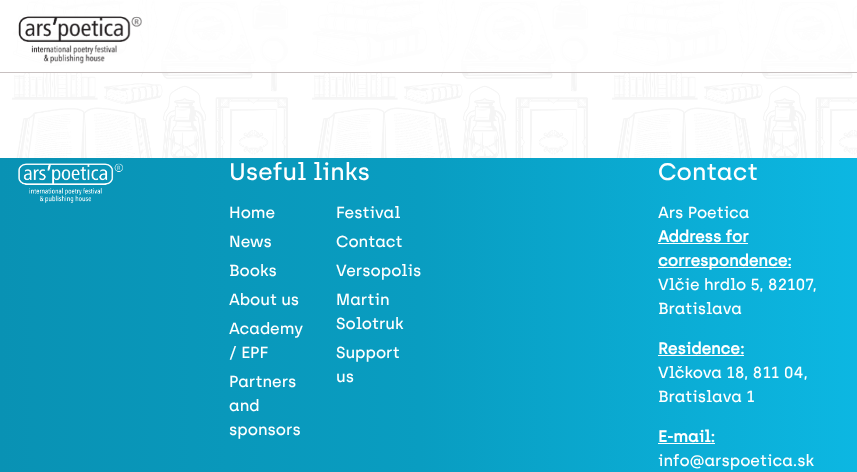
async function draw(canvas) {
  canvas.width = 857;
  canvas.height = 472;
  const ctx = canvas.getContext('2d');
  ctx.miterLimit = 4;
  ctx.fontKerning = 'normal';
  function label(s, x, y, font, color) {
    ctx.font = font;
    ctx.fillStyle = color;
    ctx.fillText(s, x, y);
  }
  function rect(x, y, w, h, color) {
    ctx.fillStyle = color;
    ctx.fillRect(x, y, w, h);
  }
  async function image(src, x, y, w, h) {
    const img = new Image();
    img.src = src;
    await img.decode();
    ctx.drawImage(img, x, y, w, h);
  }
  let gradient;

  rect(0, 0, 857, 472, '#fff');
  await image('assets/img2.png', 12, 0, 845, 158);
  rect(12, 0, 845, 72, '#ffffffcc');
  rect(0, 72, 857, 1, '#c7c0c0');
  await image('assets/img1.png', 18, 16, 124, 48);
  gradient = ctx.createLinearGradient(0, 339, 857, 339);
  gradient.addColorStop(0, '#0992b4');
  gradient.addColorStop(0.49, '#099dc1');
  gradient.addColorStop(1, '#0cb7e2');
  ctx.fillStyle = gradient;
  ctx.fillRect(0, 158, 857, 314);
  await image('assets/img3.png', 18, 163, 105, 40);
  label('Useful links', 229, 180, '500 24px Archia', '#fff');
  label('Home', 229, 218, '500 16px Archia', '#fff');
  label('News', 229, 247, '500 16px Archia', '#fff');
  label('Books', 229, 276, '500 16px Archia', '#fff');
  label('About us', 229, 305, '500 16px Archia', '#fff');
  label('Academy', 229, 334, '500 16px Archia', '#fff');
  label('/ EPF', 229, 358, '500 16px Archia', '#fff');
  label('Partners', 229, 387, '500 16px Archia', '#fff');
  label('and', 229, 411, '500 16px Archia', '#fff');
  label('sponsors', 229, 435, '500 16px Archia', '#fff');
  label('Festival', 336, 218, '500 16px Archia', '#fff');
  label('Contact', 336, 247, '500 16px Archia', '#fff');
  label('Versopolis', 336, 276, '500 16px Archia', '#fff');
  label('Martin', 336, 305, '500 16px Archia', '#fff');
  label('Solotruk', 336, 329, '500 16px Archia', '#fff');
  label('Support', 336, 358, '500 16px Archia', '#fff');
  label('us', 336, 382, '500 16px Archia', '#fff');
  label('Contact', 658, 180, '500 24px Archia', '#fff');
  label('Ars Poetica', 658, 218, '500 16px Archia', '#fff');
  label('Address for', 658, 242, 'bold 16px Archia', '#fff');
  rect(658, 243, 90, 1, '#fff');
  rect(658, 267, 133, 1, '#fff');
  label('correspondence:', 658, 266, 'bold 16px Archia', '#fff');
  label('Vlčie hrdlo 5, 82107,', 658, 290, '500 16px Archia', '#fff');
  label('Bratislava', 658, 314, '500 16px Archia', '#fff');
  label('Residence:', 658, 354, 'bold 16px Archia', '#fff');
  rect(658, 355, 86, 1, '#fff');
  label('Vlčkova 18, 811 04,', 658, 378, '500 16px Archia', '#fff');
  label('Bratislava 1', 658, 402, '500 16px Archia', '#fff');
  label('E-mail:', 658, 442, 'bold 16px Archia', '#fff');
  rect(658, 443, 57, 1, '#fff');
  label('info@arspoetica.sk', 658, 466, '500 16px Archia', '#fff');
}

draw(document.querySelector('canvas'));
